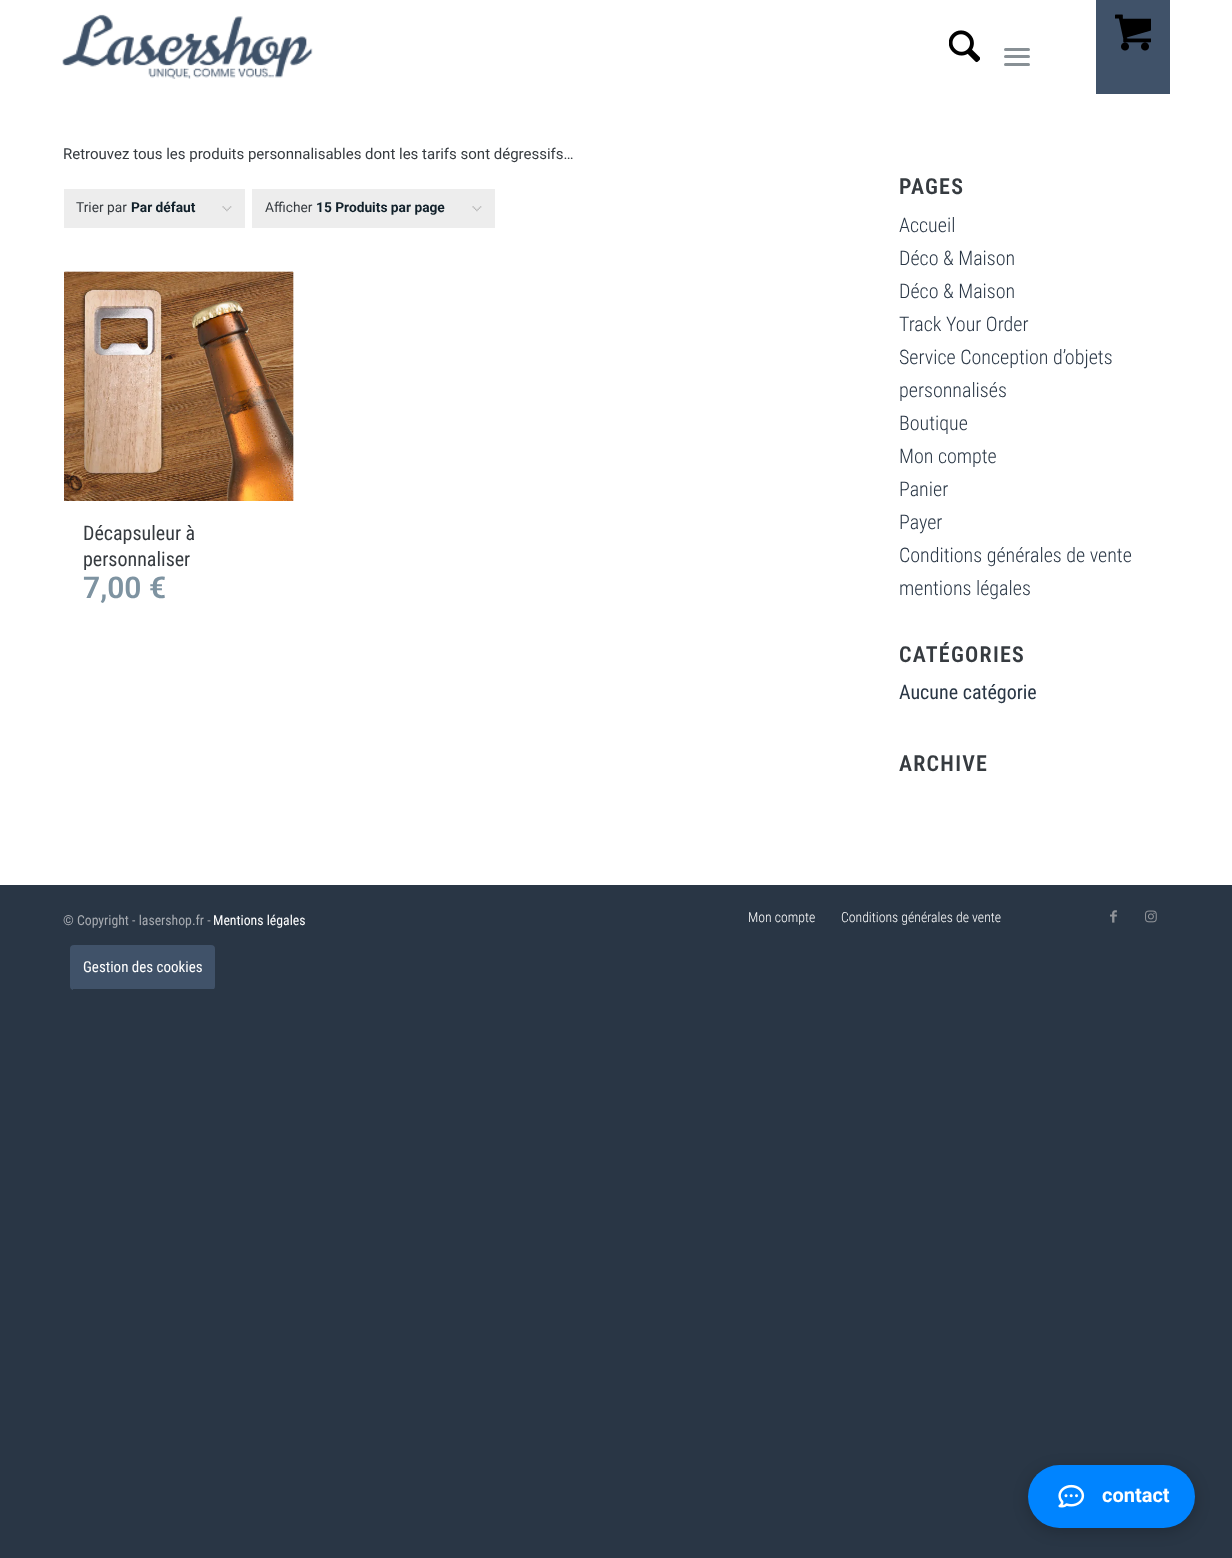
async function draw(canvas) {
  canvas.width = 1232;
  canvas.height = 1558;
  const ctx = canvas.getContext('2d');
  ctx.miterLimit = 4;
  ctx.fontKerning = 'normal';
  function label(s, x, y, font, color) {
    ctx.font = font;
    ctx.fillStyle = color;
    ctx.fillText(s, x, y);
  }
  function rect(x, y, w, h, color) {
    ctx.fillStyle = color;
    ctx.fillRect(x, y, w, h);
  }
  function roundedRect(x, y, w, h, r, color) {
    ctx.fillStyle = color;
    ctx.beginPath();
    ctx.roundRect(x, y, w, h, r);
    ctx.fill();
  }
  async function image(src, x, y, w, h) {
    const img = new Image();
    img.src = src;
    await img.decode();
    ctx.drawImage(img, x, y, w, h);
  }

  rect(0, 0, 1232, 1558, '#293645');
  rect(0, 0, 1232, 885, '#fff');
  await image('assets/img1.png', 62, 14, 251, 65);
  await image('assets/img2.png', 949, 30, 31, 33);
  roundedRect(1004, 55, 26, 3, 1.5, '#889095');
  roundedRect(1004, 48, 26, 3, 1.5, '#889095');
  roundedRect(1004, 63, 26, 3, 1.5, '#889095');
  rect(1096, 0, 74, 94, '#405269');
  await image('assets/img3.png', 1115, 14, 36, 37);
  label('Retrouvez tous les produits personnalisables dont les tarifs sont dégressifs…', 63, 159, '15px Roboto', '#363b40');
  rect(64, 189, 181, 39, '#ededed');
  await image('assets/img4.png', 222, 206, 10, 6);
  label('Trier par', 76, 212, '13.75px Roboto', '#363b40');
  label('Par défaut', 131, 212, 'bold 13.75px Roboto', '#11202a');
  rect(252, 189, 243, 39, '#ededed');
  await image('assets/img4.png', 472, 206, 10, 6);
  label('Afficher', 265, 212, '13.75px Roboto', '#363b40');
  label('15 Produits par page', 316, 212, 'bold 13.75px Roboto', '#11202a');
  await image('assets/img5.png', 64, 271, 230, 230);
  label('Décapsuleur à', 83, 540, '20px Roboto Condensed', '#363b40');
  label('personnaliser', 83, 566, '20px Roboto Condensed', '#363b40');
  label('7,00 €', 83, 598, '600 30px Roboto', '#7e93a1');
  ctx.letterSpacing = '1.25px';
  label('PAGES', 899, 194, '600 22px Roboto Condensed', '#363b40');
  ctx.letterSpacing = '0px';
  label('Accueil', 899, 232, '300 20px Roboto Condensed', '#293645');
  label('Déco & Maison', 899, 265, '300 20px Roboto Condensed', '#293645');
  label('Déco & Maison', 899, 298, '300 20px Roboto Condensed', '#293645');
  label('Track Your Order', 899, 331, '300 20px Roboto Condensed', '#293645');
  label('Service Conception d’objets', 899, 364, '300 20px Roboto Condensed', '#293645');
  label('personnalisés', 899, 397, '300 20px Roboto Condensed', '#293645');
  label('Boutique', 899, 430, '300 20px Roboto Condensed', '#293645');
  label('Mon compte', 899, 463, '300 20px Roboto Condensed', '#293645');
  label('Panier', 899, 496, '300 20px Roboto Condensed', '#293645');
  label('Payer', 899, 529, '300 20px Roboto Condensed', '#293645');
  label('Conditions générales de vente', 899, 562, '300 20px Roboto Condensed', '#293645');
  label('mentions légales', 899, 595, '300 20px Roboto Condensed', '#293645');
  ctx.letterSpacing = '1.25px';
  label('CATÉGORIES', 899, 662, '600 22px Roboto Condensed', '#363b40');
  ctx.letterSpacing = '0px';
  label('Aucune catégorie', 899, 699, '20px Roboto Condensed', '#293645');
  ctx.letterSpacing = '1.25px';
  label('ARCHIVE', 899, 771, '600 22px Roboto Condensed', '#363b40');
  ctx.letterSpacing = '0px';
  label('© Copyright - lasershop.fr -', 63, 925, '13.75px Roboto Condensed', '#a7abb1');
  label('Mentions légales', 213, 925, '13.75px Roboto Condensed', '#fff');
  roundedRect(70, 945, 145, 45, 4, '#405269');
  rect(73, 989, 141, 1, '#293645');
  label('Gestion des cookies', 83, 972, '15px Roboto Condensed', '#fff');
  label('Mon compte', 748, 922, '300 13.75px Roboto Condensed', '#fff');
  label('Conditions générales de vente', 841, 922, '300 13.75px Roboto Condensed', '#fff');
  await image('assets/img6.png', 1110, 910, 7, 13);
  await image('assets/img7.png', 1145, 910, 12, 13);
  ctx.fillStyle = '#00000033';
  ctx.filter = 'blur(7.5px)';
  ctx.beginPath();
  ctx.roundRect(1028, 1469, 167, 62, 31);
  ctx.fill();
  ctx.filter = 'none';
  roundedRect(1028, 1465, 167, 63, 31.5, '#0084ff');
  await image('assets/img8.png', 1058, 1484, 27, 24);
  label('contact', 1102, 1502, 'bold 20px Roboto', '#fff');
}

draw(document.querySelector('canvas'));
